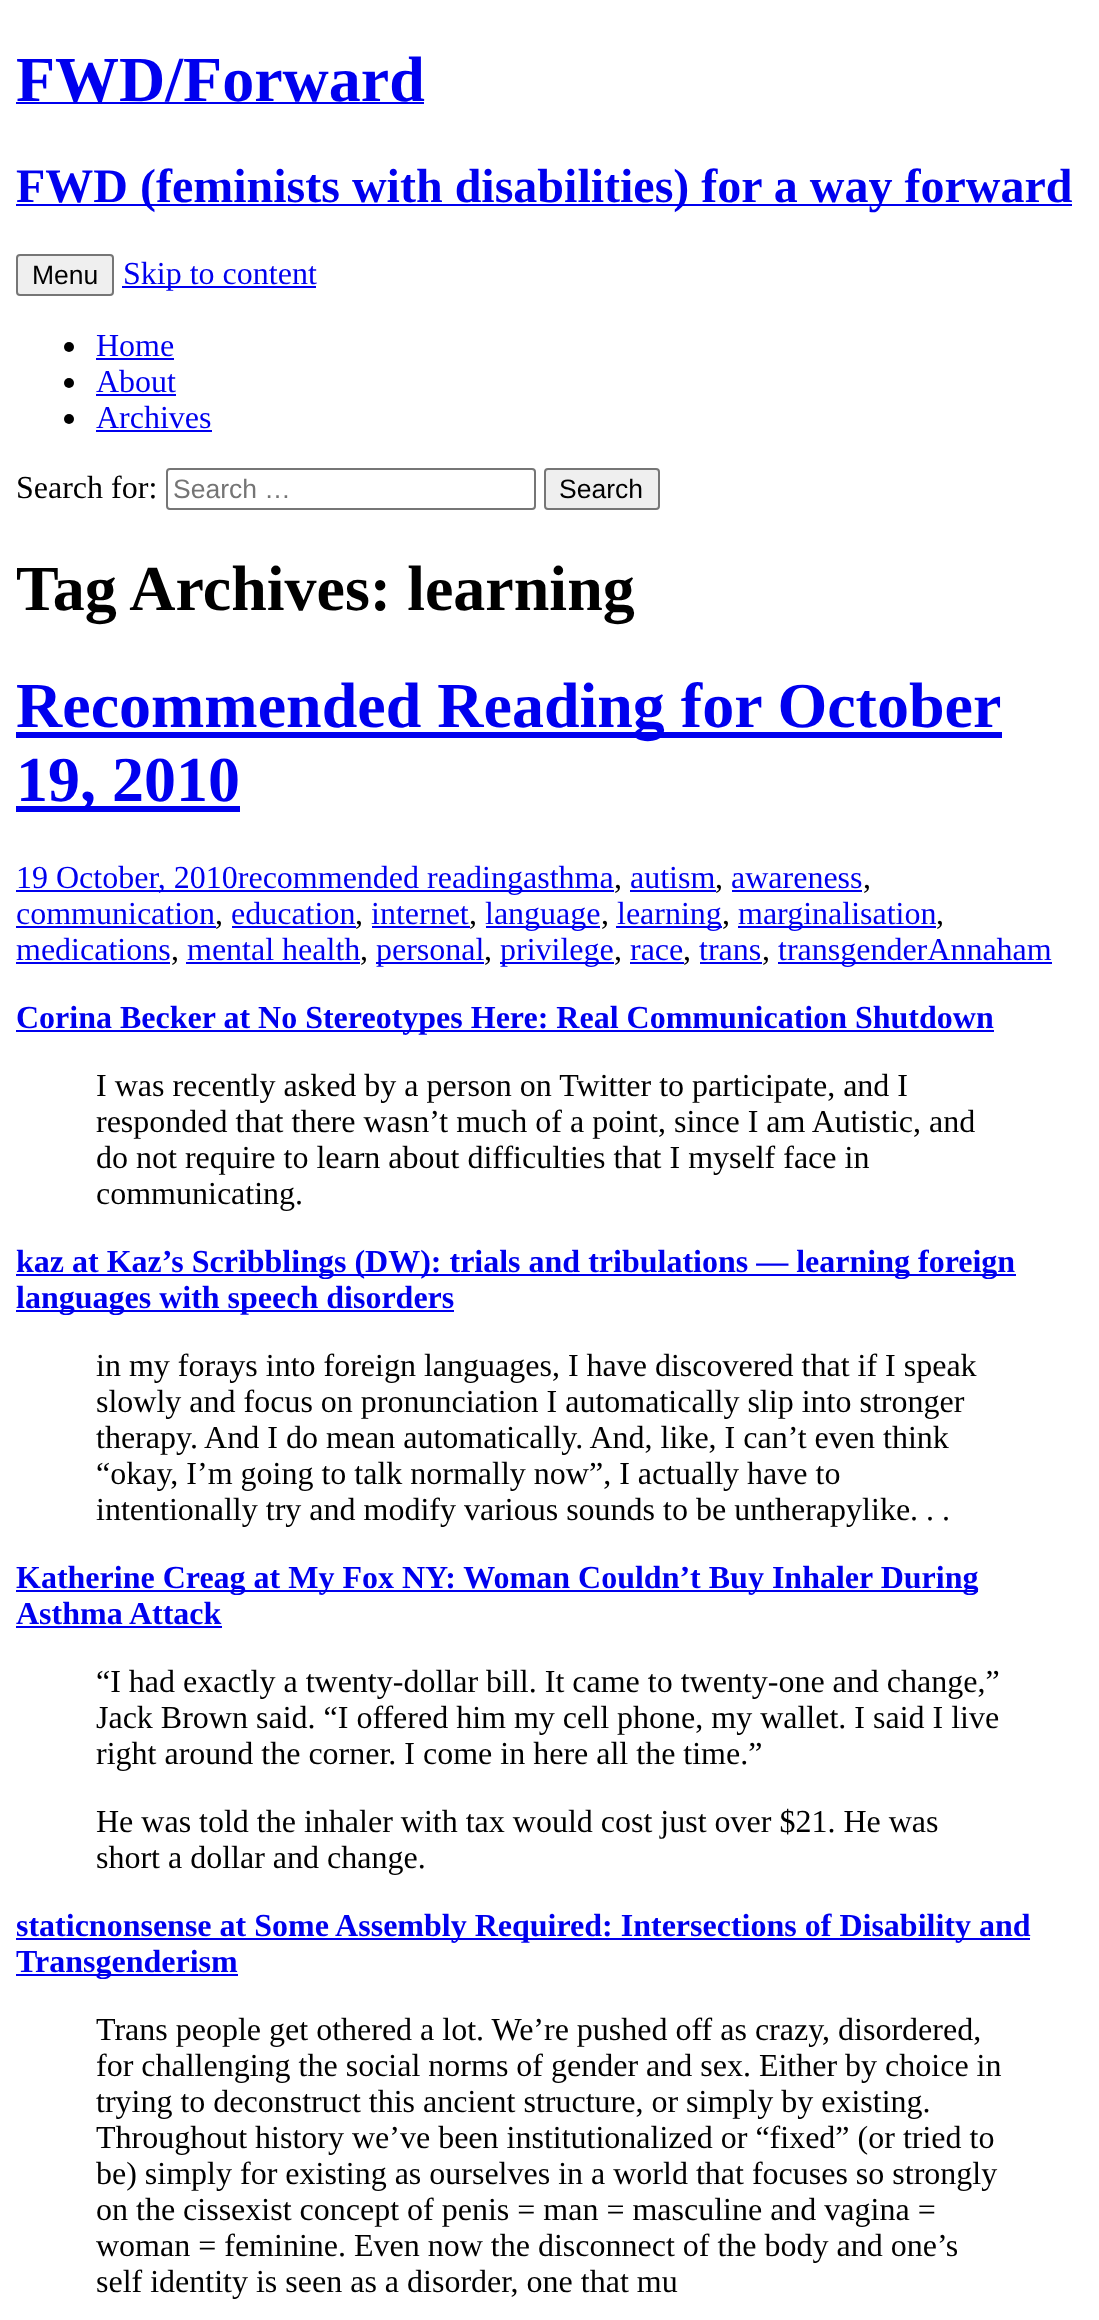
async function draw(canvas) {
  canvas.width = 1099;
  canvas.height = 2320;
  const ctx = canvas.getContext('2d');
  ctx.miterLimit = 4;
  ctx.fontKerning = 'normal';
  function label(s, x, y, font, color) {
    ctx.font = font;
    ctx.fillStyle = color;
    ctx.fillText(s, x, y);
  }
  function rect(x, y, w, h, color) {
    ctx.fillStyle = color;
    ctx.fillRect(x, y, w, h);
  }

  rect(0, 0, 1099, 2320, '#fff');
  label('FWD/Forward', 16, 101, 'bold 64px Liberation Serif', '#00e');
  rect(16, 102, 408, 2, '#00e');
  rect(16, 204, 1056, 2, '#00e');
  label('FWD (feminists with disabilities) for a way forward', 16, 202, 'bold 48px Liberation Serif', '#00e');
  ctx.fillStyle = '#efefef';
  ctx.beginPath();
  ctx.roundRect(17, 255, 96, 40, 3);
  ctx.fill();
  ctx.strokeStyle = '#767676';
  ctx.lineWidth = 2;
  ctx.stroke();
  label('Menu', 32, 284, '26.5px Liberation Sans', '#000');
  rect(122, 286, 194, 2, '#00e');
  label('Skip to content', 123, 284, '32px Liberation Serif', '#00e');
  ctx.fillStyle = '#000';
  ctx.beginPath();
  ctx.arc(69, 347, 5, 0, 2 * Math.PI);
  ctx.fill();
  label('Home', 96, 356, '32px Liberation Serif', '#00e');
  rect(96, 358, 78, 2, '#00e');
  ctx.fillStyle = '#000';
  ctx.beginPath();
  ctx.arc(69, 383, 5, 0, 2 * Math.PI);
  ctx.fill();
  label('About', 96, 392, '32px Liberation Serif', '#00e');
  rect(96, 394, 80, 2, '#00e');
  ctx.fillStyle = '#000';
  ctx.beginPath();
  ctx.arc(69, 419, 5, 0, 2 * Math.PI);
  ctx.fill();
  label('Archives', 96, 428, '32px Liberation Serif', '#00e');
  rect(96, 430, 116, 2, '#00e');
  label('Search for:', 16, 498, '32px Liberation Serif', '#000');
  ctx.beginPath();
  ctx.roundRect(167, 469, 368, 40, 3);
  ctx.stroke();
  label('Search …', 173, 498, '26.5px Liberation Sans', '#757575');
  ctx.fillStyle = '#efefef';
  ctx.beginPath();
  ctx.roundRect(545, 469, 114, 40, 3);
  ctx.fill();
  ctx.stroke();
  label('Search', 559, 498, '26.5px Liberation Sans', '#000');
  label('Tag Archives: learning', 16, 610, 'bold 64px Liberation Serif', '#000');
  rect(16, 732, 986, 6, '#00e');
  label('Recommended Reading for October', 16, 727, 'bold 64px Liberation Serif', '#00e');
  rect(16, 806, 224, 6, '#00e');
  label('19, 2010', 16, 801, 'bold 64px Liberation Serif', '#00e');
  rect(16, 890, 598, 2, '#00e');
  label('19 October, 2010recommended readingasthma', 16, 888, '32px Liberation Serif', '#00e');
  label(',', 614, 888, '32px Liberation Serif', '#000');
  label('autism', 630, 888, '32px Liberation Serif', '#00e');
  label(',', 715, 888, '32px Liberation Serif', '#000');
  rect(630, 890, 86, 2, '#00e');
  label('awareness', 731, 888, '32px Liberation Serif', '#00e');
  label(',', 863, 888, '32px Liberation Serif', '#000');
  rect(732, 890, 130, 2, '#00e');
  label('communication', 16, 924, '32px Liberation Serif', '#00e');
  label(',', 215, 924, '32px Liberation Serif', '#000');
  rect(16, 926, 200, 2, '#00e');
  label('education', 231, 924, '32px Liberation Serif', '#00e');
  label(',', 355, 924, '32px Liberation Serif', '#000');
  rect(232, 926, 124, 2, '#00e');
  label('internet', 371, 924, '32px Liberation Serif', '#00e');
  label(',', 469, 924, '32px Liberation Serif', '#000');
  rect(372, 926, 98, 2, '#00e');
  rect(486, 926, 114, 2, '#00e');
  label('language', 485, 924, '32px Liberation Serif', '#00e');
  label(',', 601, 924, '32px Liberation Serif', '#000');
  rect(616, 926, 106, 2, '#00e');
  label('learning', 617, 924, '32px Liberation Serif', '#00e');
  label(',', 722, 924, '32px Liberation Serif', '#000');
  rect(738, 926, 198, 2, '#00e');
  label('marginalisation', 738, 924, '32px Liberation Serif', '#00e');
  label(',', 936, 924, '32px Liberation Serif', '#000');
  label('medications', 16, 960, '32px Liberation Serif', '#00e');
  label(',', 171, 960, '32px Liberation Serif', '#000');
  rect(16, 962, 154, 2, '#00e');
  label('mental health', 187, 960, '32px Liberation Serif', '#00e');
  label(',', 360, 960, '32px Liberation Serif', '#000');
  rect(186, 962, 174, 2, '#00e');
  rect(376, 962, 108, 2, '#00e');
  label('personal', 376, 960, '32px Liberation Serif', '#00e');
  label(',', 484, 960, '32px Liberation Serif', '#000');
  rect(500, 962, 114, 2, '#00e');
  label('privilege', 500, 960, '32px Liberation Serif', '#00e');
  label(',', 614, 960, '32px Liberation Serif', '#000');
  label('race', 630, 960, '32px Liberation Serif', '#00e');
  label(',', 683, 960, '32px Liberation Serif', '#000');
  rect(630, 962, 54, 2, '#00e');
  label('trans', 699, 960, '32px Liberation Serif', '#00e');
  label(',', 762, 960, '32px Liberation Serif', '#000');
  rect(700, 962, 62, 2, '#00e');
  rect(778, 962, 148, 2, '#00e');
  label('transgenderAnnaham', 778, 960, '32px Liberation Serif', '#00e');
  rect(926, 962, 126, 2, '#00e');
  rect(16, 1030, 978, 2, '#00e');
  label('Corina Becker at No Stereotypes Here: Real Communication Shutdown', 16, 1028, 'bold 32px Liberation Serif', '#00e');
  label('I was recently asked by a person on Twitter to participate, and I', 96, 1096, '32px Liberation Serif', '#000');
  label('responded that there wasn’t much of a point, since I am Autistic, and', 96, 1132, '32px Liberation Serif', '#000');
  label('do not require to learn about difficulties that I myself face in', 96, 1168, '32px Liberation Serif', '#000');
  label('communicating.', 96, 1204, '32px Liberation Serif', '#000');
  rect(16, 1274, 1000, 2, '#00e');
  label('kaz at Kaz’s Scribblings (DW): trials and tribulations — learning foreign', 16, 1272, 'bold 32px Liberation Serif', '#00e');
  rect(16, 1310, 438, 2, '#00e');
  label('languages with speech disorders', 16, 1308, 'bold 32px Liberation Serif', '#00e');
  label('in my forays into foreign languages, I have discovered that if I speak', 96, 1376, '32px Liberation Serif', '#000');
  label('slowly and focus on pronunciation I automatically slip into stronger', 96, 1412, '32px Liberation Serif', '#000');
  label('therapy. And I do mean automatically. And, like, I can’t even think', 96, 1448, '32px Liberation Serif', '#000');
  label('“okay, I’m going to talk normally now”, I actually have to', 96, 1484, '32px Liberation Serif', '#000');
  label('intentionally try and modify various sounds to be untherapylike. . .', 96, 1520, '32px Liberation Serif', '#000');
  rect(16, 1590, 962, 2, '#00e');
  label('Katherine Creag at My Fox NY: Woman Couldn’t Buy Inhaler During', 16, 1588, 'bold 32px Liberation Serif', '#00e');
  label('Asthma Attack', 16, 1624, 'bold 32px Liberation Serif', '#00e');
  rect(16, 1626, 206, 2, '#00e');
  label('“I had exactly a twenty-dollar bill. It came to twenty-one and change,”', 96, 1692, '32px Liberation Serif', '#000');
  label('Jack Brown said. “I offered him my cell phone, my wallet. I said I live', 96, 1728, '32px Liberation Serif', '#000');
  label('right around the corner. I come in here all the time.”', 96, 1764, '32px Liberation Serif', '#000');
  label('He was told the inhaler with tax would cost just over $21. He was', 96, 1832, '32px Liberation Serif', '#000');
  label('short a dollar and change.', 96, 1868, '32px Liberation Serif', '#000');
  rect(16, 1938, 1014, 2, '#00e');
  label('staticnonsense at Some Assembly Required: Intersections of Disability and', 16, 1936, 'bold 32px Liberation Serif', '#00e');
  rect(16, 1974, 222, 2, '#00e');
  label('Transgenderism', 16, 1972, 'bold 32px Liberation Serif', '#00e');
  label('Trans people get othered a lot. We’re pushed off as crazy, disordered,', 96, 2040, '32px Liberation Serif', '#000');
  label('for challenging the social norms of gender and sex. Either by choice in', 96, 2076, '32px Liberation Serif', '#000');
  label('trying to deconstruct this ancient structure, or simply by existing.', 96, 2112, '32px Liberation Serif', '#000');
  label('Throughout history we’ve been institutionalized or “fixed” (or tried to', 96, 2148, '32px Liberation Serif', '#000');
  label('be) simply for existing as ourselves in a world that focuses so strongly', 96, 2184, '32px Liberation Serif', '#000');
  label('on the cissexist concept of penis = man = masculine and vagina =', 96, 2220, '32px Liberation Serif', '#000');
  label('woman = feminine. Even now the disconnect of the body and one’s', 96, 2256, '32px Liberation Serif', '#000');
  label('self identity is seen as a disorder, one that mu', 96, 2292, '32px Liberation Serif', '#000');
}

draw(document.querySelector('canvas'));
